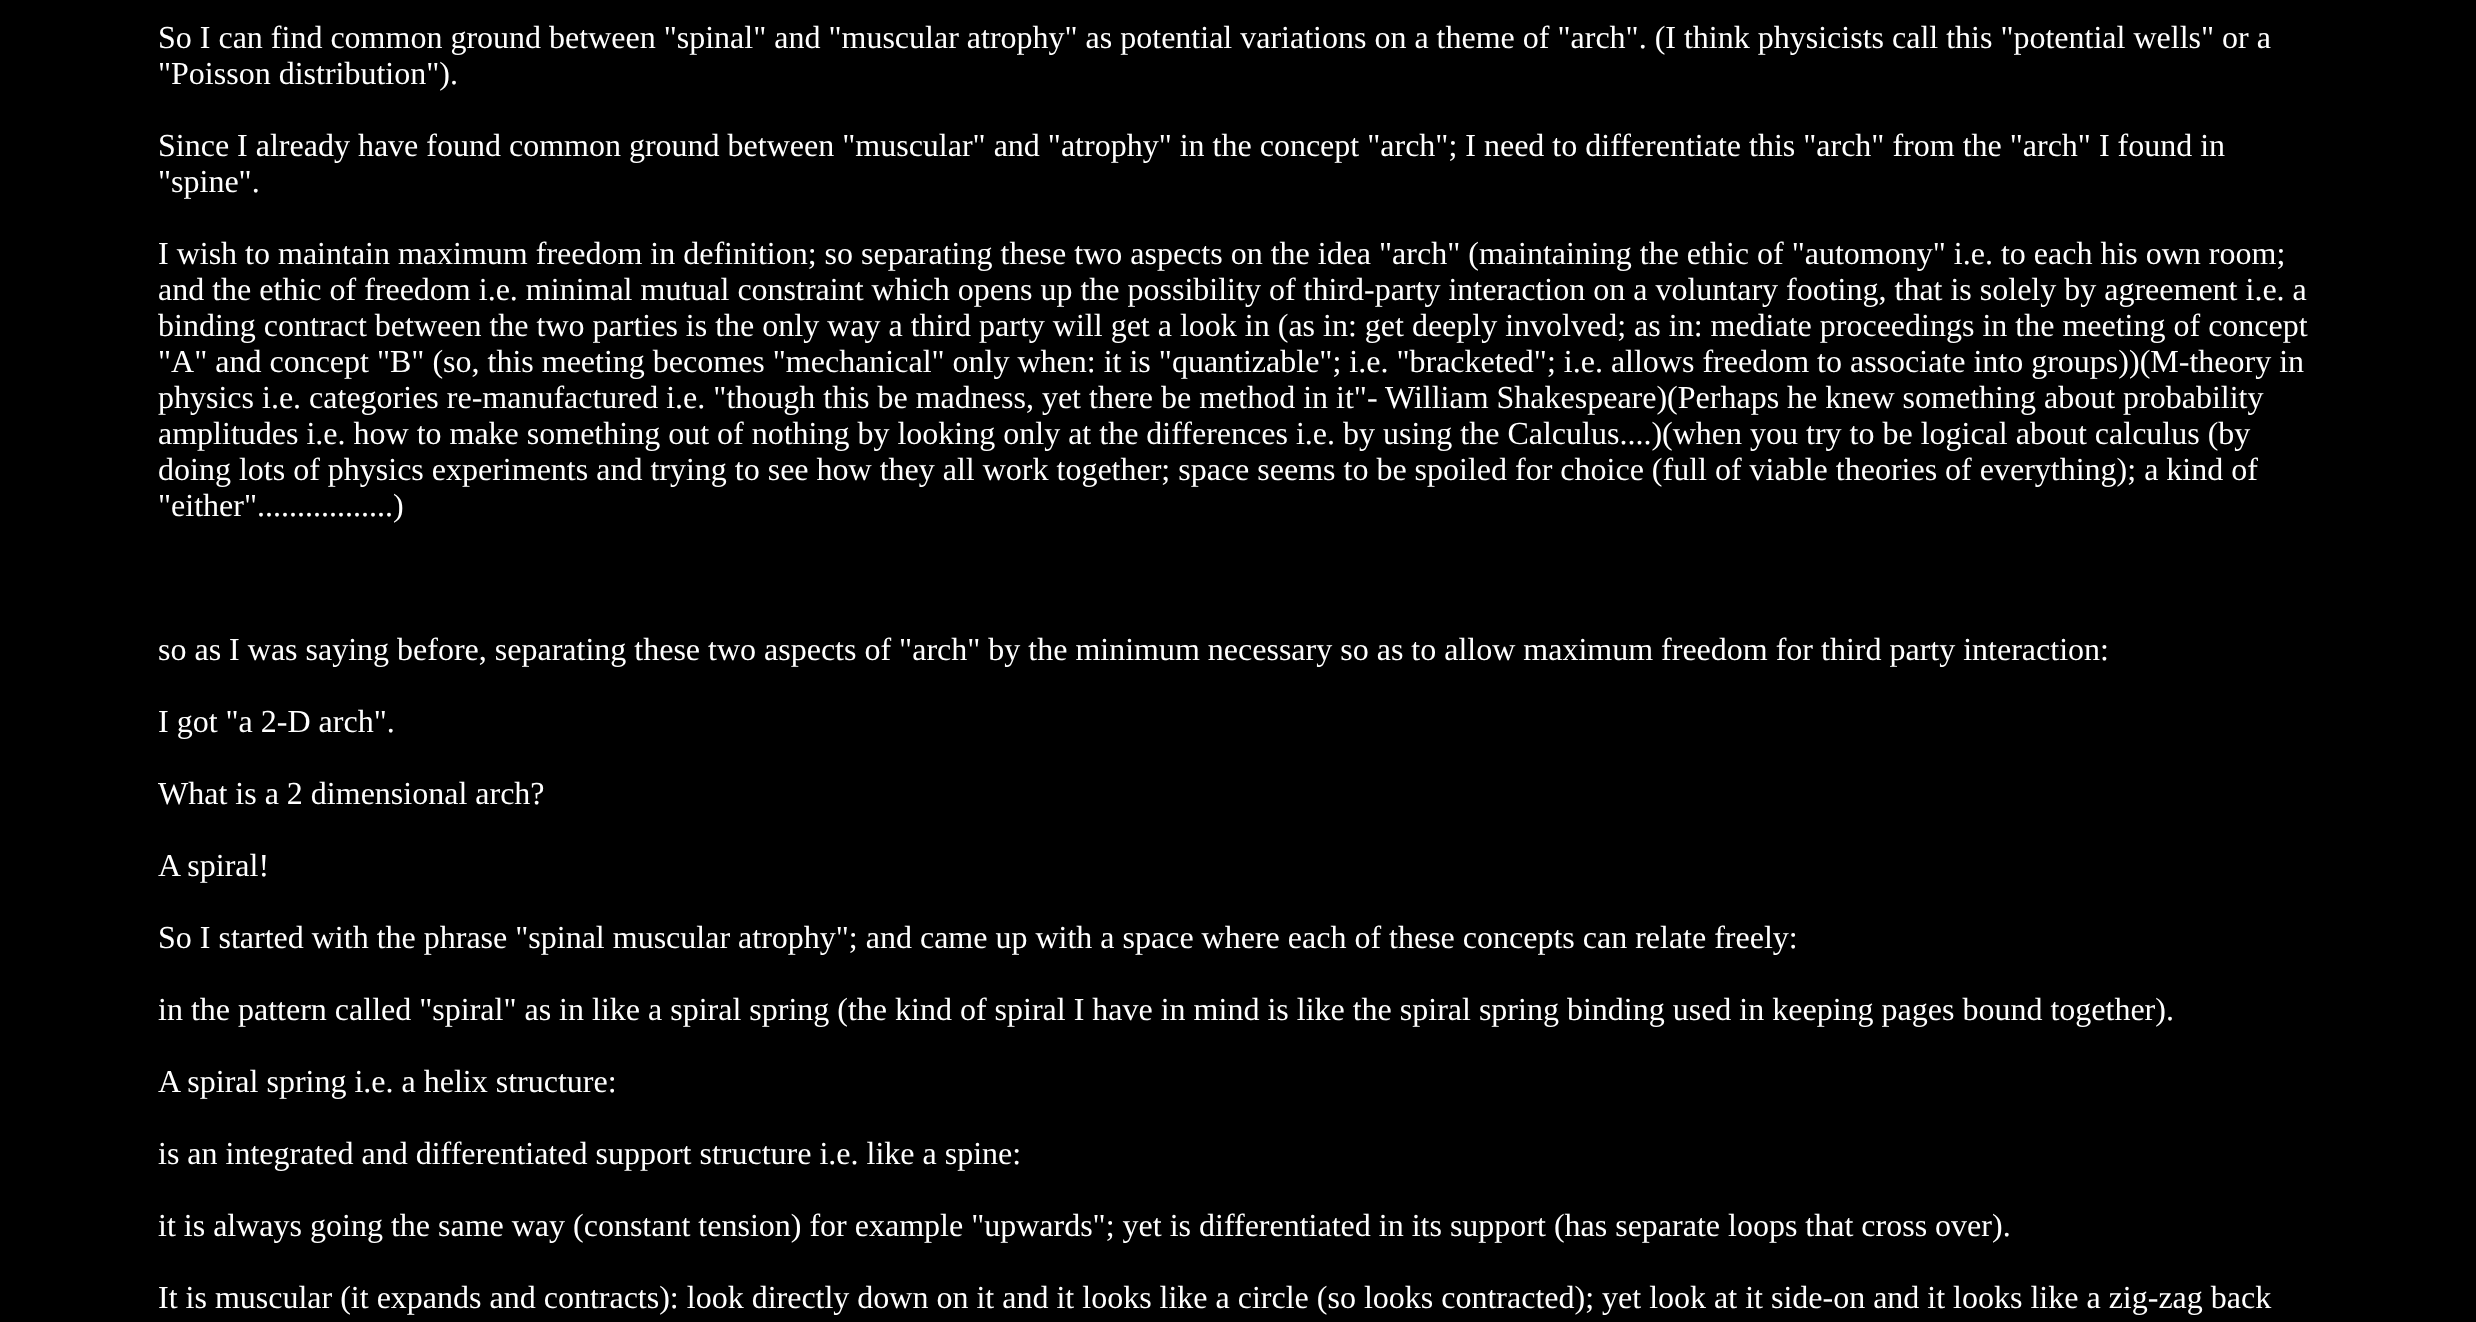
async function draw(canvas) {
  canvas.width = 2476;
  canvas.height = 1322;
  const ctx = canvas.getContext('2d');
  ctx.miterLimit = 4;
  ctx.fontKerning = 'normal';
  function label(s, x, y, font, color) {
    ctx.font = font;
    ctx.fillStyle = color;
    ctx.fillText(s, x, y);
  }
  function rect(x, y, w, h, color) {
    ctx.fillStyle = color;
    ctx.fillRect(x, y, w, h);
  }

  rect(0, 0, 2476, 1322, '#000');
  label('So I can find common ground between "spinal" and "muscular atrophy" as potential variations on a theme of "arch". (I think physicists call this "potential wells" or a', 158, 48, '32px Liberation Serif', '#fff');
  label('"Poisson distribution").', 158, 84, '32px Liberation Serif', '#fff');
  label('Since I already have found common ground between "muscular" and "atrophy" in the concept "arch"; I need to differentiate this "arch" from the "arch" I found in', 158, 156, '32px Liberation Serif', '#fff');
  label('"spine".', 158, 192, '32px Liberation Serif', '#fff');
  label('I wish to maintain maximum freedom in definition; so separating these two aspects on the idea "arch" (maintaining the ethic of "automony" i.e. to each his own room;', 158, 264, '32px Liberation Serif', '#fff');
  label('and the ethic of freedom i.e. minimal mutual constraint which opens up the possibility of third-party interaction on a voluntary footing, that is solely by agreement i.e. a', 158, 300, '32px Liberation Serif', '#fff');
  label('binding contract between the two parties is the only way a third party will get a look in (as in: get deeply involved; as in: mediate proceedings in the meeting of concept', 158, 336, '32px Liberation Serif', '#fff');
  label('"A" and concept "B" (so, this meeting becomes "mechanical" only when: it is "quantizable"; i.e. "bracketed"; i.e. allows freedom to associate into groups))(M-theory in', 158, 372, '32px Liberation Serif', '#fff');
  label('physics i.e. categories re-manufactured i.e. "though this be madness, yet there be method in it"- William Shakespeare)(Perhaps he knew something about probability', 158, 408, '32px Liberation Serif', '#fff');
  label('amplitudes i.e. how to make something out of nothing by looking only at the differences i.e. by using the Calculus....)(when you try to be logical about calculus (by', 158, 444, '32px Liberation Serif', '#fff');
  label('doing lots of physics experiments and trying to see how they all work together; space seems to be spoiled for choice (full of viable theories of everything); a kind of', 158, 480, '32px Liberation Serif', '#fff');
  label('"either".................)', 158, 516, '32px Liberation Serif', '#fff');
  label('so as I was saying before, separating these two aspects of "arch" by the minimum necessary so as to allow maximum freedom for third party interaction:', 158, 660, '32px Liberation Serif', '#fff');
  label('I got "a 2-D arch".', 158, 732, '32px Liberation Serif', '#fff');
  label('What is a 2 dimensional arch?', 158, 804, '32px Liberation Serif', '#fff');
  label('A spiral!', 158, 876, '32px Liberation Serif', '#fff');
  label('So I started with the phrase "spinal muscular atrophy"; and came up with a space where each of these concepts can relate freely:', 158, 948, '32px Liberation Serif', '#fff');
  label('in the pattern called "spiral" as in like a spiral spring (the kind of spiral I have in mind is like the spiral spring binding used in keeping pages bound together).', 158, 1020, '32px Liberation Serif', '#fff');
  label('A spiral spring i.e. a helix structure:', 158, 1092, '32px Liberation Serif', '#fff');
  label('is an integrated and differentiated support structure i.e. like a spine:', 158, 1164, '32px Liberation Serif', '#fff');
  label('it is always going the same way (constant tension) for example "upwards"; yet is differentiated in its support (has separate loops that cross over).', 158, 1236, '32px Liberation Serif', '#fff');
  label('It is muscular (it expands and contracts): look directly down on it and it looks like a circle (so looks contracted); yet look at it side-on and it looks like a zig-zag back', 158, 1308, '32px Liberation Serif', '#fff');
}

draw(document.querySelector('canvas'));
